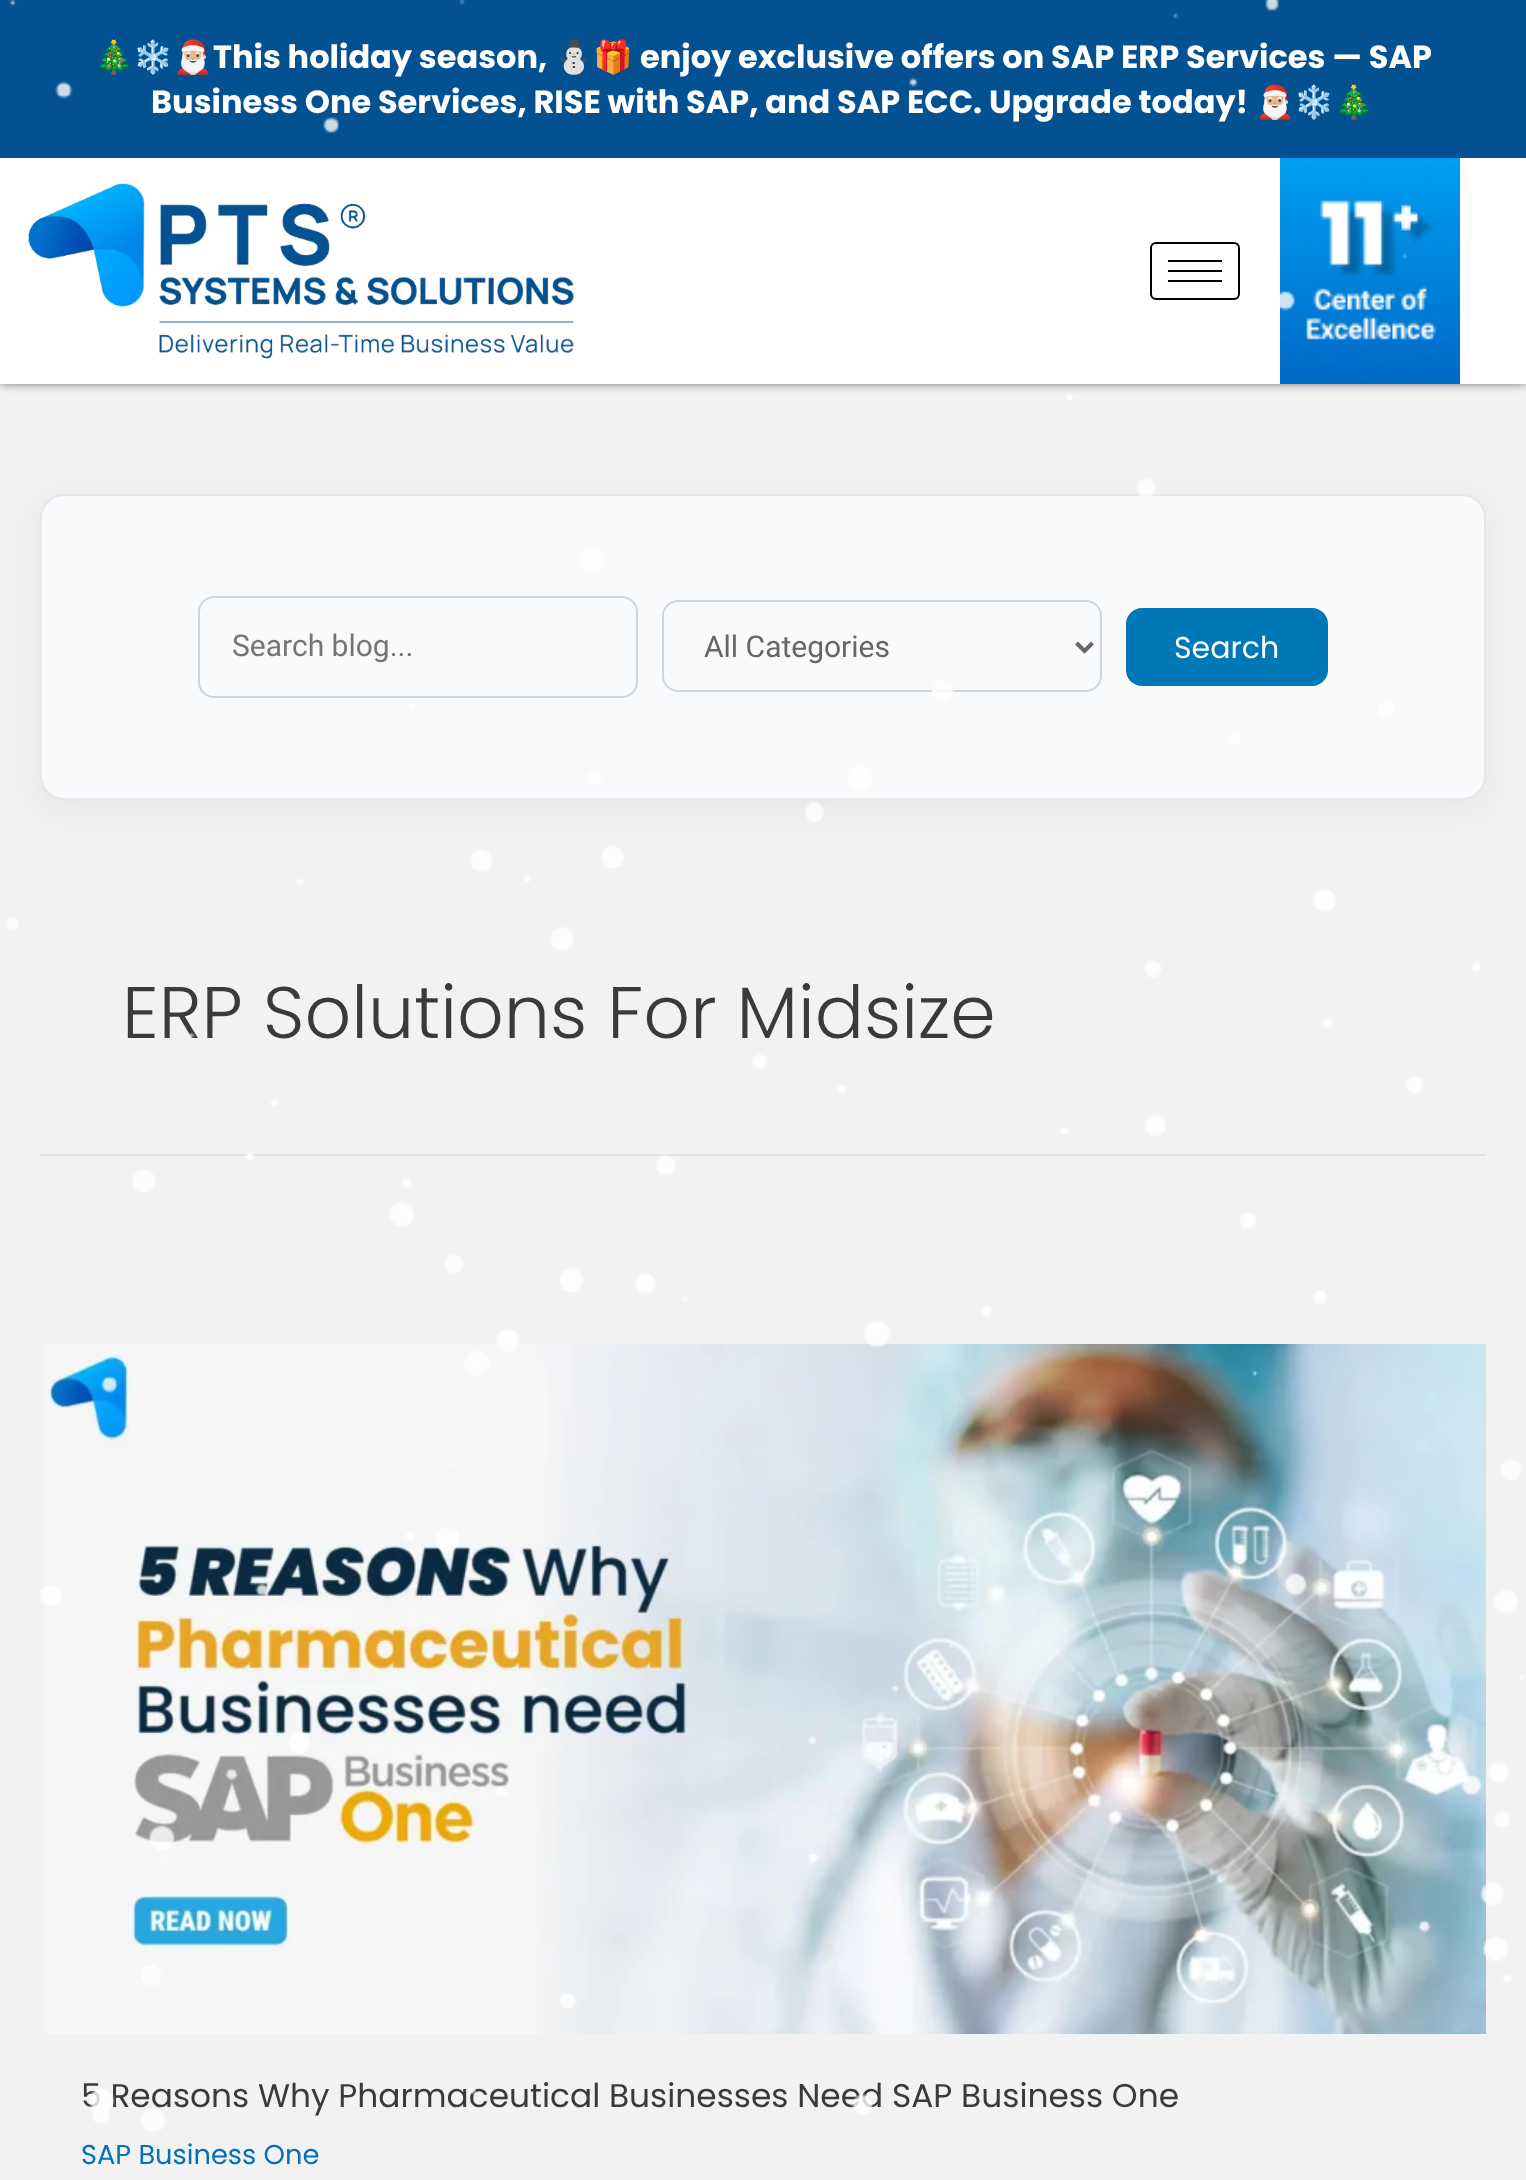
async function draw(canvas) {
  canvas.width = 1526;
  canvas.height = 2180;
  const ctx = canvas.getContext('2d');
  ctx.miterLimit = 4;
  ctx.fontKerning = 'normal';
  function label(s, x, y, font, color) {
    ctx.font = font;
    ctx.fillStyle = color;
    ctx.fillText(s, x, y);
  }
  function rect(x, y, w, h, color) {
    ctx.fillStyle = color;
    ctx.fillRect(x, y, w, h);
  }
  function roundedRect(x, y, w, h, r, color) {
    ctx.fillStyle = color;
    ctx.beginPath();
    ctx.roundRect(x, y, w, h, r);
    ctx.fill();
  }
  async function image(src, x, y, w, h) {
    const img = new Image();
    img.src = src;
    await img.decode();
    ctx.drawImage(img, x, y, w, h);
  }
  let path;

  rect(0, 0, 1526, 2180, '#f2f2f2');
  ctx.fillStyle = '#00000080';
  ctx.filter = 'blur(5px)';
  ctx.beginPath();
  ctx.rect(0, 158, 1526, 226);
  ctx.fill();
  ctx.filter = 'none';
  rect(0, 0, 1526, 158, '#045191');
  label('🎄❄️🎅🏼', 94, 68, 'bold 32px Noto Color Emoji', '#fff');
  label('This holiday season,', 213, 68, 'bold 32px Poppins', '#fff');
  label('⛄🎁', 554, 68, 'bold 32px Noto Color Emoji', '#fff');
  label('enjoy exclusive offers on SAP ERP Services — SAP', 640, 68, 'bold 32px Poppins', '#fff');
  label('Business One Services, RISE with SAP, and SAP ECC. Upgrade today!', 151, 113, 'bold 32px Poppins', '#fff');
  label('🎅🏼❄️🎄', 1255, 113, 'bold 32px Noto Color Emoji', '#fff');
  rect(0, 158, 1526, 226, '#fff');
  await image('assets/img2.png', 28, 183, 546, 176);
  ctx.beginPath();
  ctx.roundRect(1151, 243, 88, 56, 5);
  ctx.strokeStyle = '#000';
  ctx.lineWidth = 2;
  ctx.stroke();
  rect(1168, 260, 54, 2, '#000');
  rect(1168, 270, 54, 2, '#000');
  rect(1168, 280, 54, 2, '#000');
  await image('assets/img3.png', 1280, 158, 180, 226);
  ctx.fillStyle = '#0000000d';
  ctx.filter = 'blur(15px)';
  ctx.beginPath();
  ctx.roundRect(40, 502, 1446, 306, 24);
  ctx.fill();
  ctx.filter = 'none';
  ctx.fillStyle = '#f9fafc';
  ctx.beginPath();
  ctx.roundRect(41, 495, 1444, 304, 23);
  ctx.fill();
  ctx.strokeStyle = '#e5e7eb';
  ctx.stroke();
  ctx.beginPath();
  ctx.roundRect(199, 597, 438, 100, 15);
  ctx.strokeStyle = '#d1d5db';
  ctx.stroke();
  label('Search blog...', 232, 656, '30px Roboto', '#757575');
  ctx.beginPath();
  ctx.roundRect(663, 601, 438, 90, 15);
  ctx.stroke();
  path = new Path2D('M1076.5 643L1084.5 651L1092.5 643');
  ctx.strokeStyle = '#666';
  ctx.lineWidth = 4;
  ctx.stroke(path);
  label('All Categories', 704, 657, '30px Roboto', '#666');
  roundedRect(1126, 608, 202, 78, 16, '#0077b6');
  label('Search', 1174, 658, '30px Poppins', '#fff');
  rect(40, 1154, 1446, 2, '#e5e5e5');
  label('ERP Solutions For Midsize', 122, 1038, '300 73px Poppins', '#3a3a3a');
  await image('assets/img4.png', 44, 1344, 1442, 690);
  label('5 Reasons Why Pharmaceutical Businesses Need SAP Business One', 81, 2107, '32.85px Poppins', '#3a3a3a');
  await image('assets/img1.png', 6, 0, 1519, 2132);
  label('SAP Business One', 81, 2164, '27.25px Poppins', '#0170b9');
}

draw(document.querySelector('canvas'));
